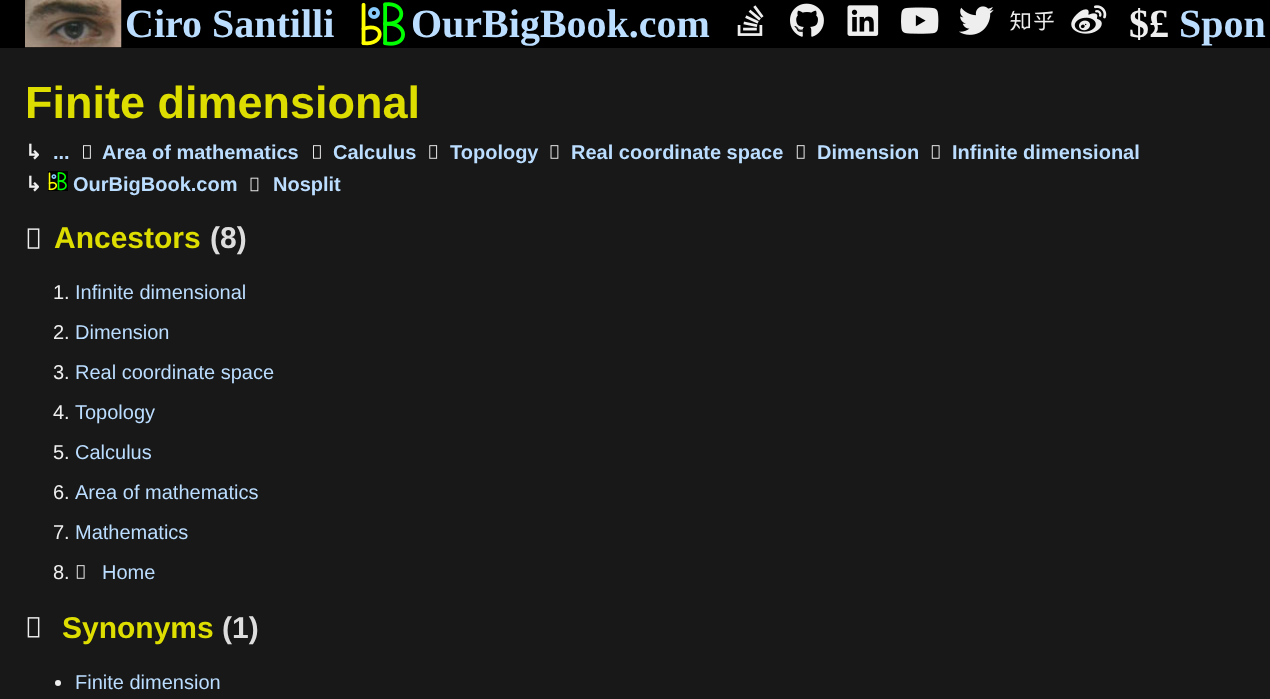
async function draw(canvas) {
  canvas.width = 1270;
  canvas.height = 699;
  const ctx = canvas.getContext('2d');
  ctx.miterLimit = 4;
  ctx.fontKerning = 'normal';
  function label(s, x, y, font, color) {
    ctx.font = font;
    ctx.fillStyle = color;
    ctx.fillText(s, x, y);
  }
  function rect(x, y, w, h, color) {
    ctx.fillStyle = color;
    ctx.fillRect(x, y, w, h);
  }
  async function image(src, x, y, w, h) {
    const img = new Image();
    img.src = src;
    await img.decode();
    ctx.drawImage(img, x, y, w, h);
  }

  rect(0, 0, 1270, 699, '#181818');
  rect(0, 0, 1270, 48, '#000');
  await image('assets/img1.png', 25, 0, 97, 48);
  label('Ciro Santilli', 125, 37, 'bold 40px Liberation Serif', '#bdf');
  await image('assets/img2.png', 361, 2, 44, 44);
  label('OurBigBook.com', 411, 37, 'bold 40px Liberation Serif', '#bdf');
  await image('assets/img3.png', 737, 5, 27, 31);
  await image('assets/img4.png', 790, 3, 34, 34);
  await image('assets/img5.png', 847, 5, 32, 31);
  await image('assets/img6.png', 901, 7, 38, 27);
  await image('assets/img7.png', 959, 6, 35, 29);
  await image('assets/img8.png', 1010, 10, 44, 21);
  await image('assets/img9.png', 1071, 5, 36, 29);
  label('$£', 1129, 37, 'bold 40px Liberation Serif', '#eee');
  label('Spon', 1179, 37, 'bold 40px Liberation Serif', '#bdf');
  label('Finite dimensional', 25, 118, 'bold 45px Liberation Sans', '#dd0');
  label('↳', 25, 159, 'bold 20px DejaVu Sans', '#eee');
  label('...', 53, 159, 'bold 20px Liberation Sans', '#bdf');
  await image('assets/img10.png', 83, 145, 8, 14);
  label('Area of mathematics', 102, 159, 'bold 20px Liberation Sans', '#bdf');
  await image('assets/img10.png', 313, 145, 8, 14);
  label('Calculus', 333, 159, 'bold 20px Liberation Sans', '#bdf');
  await image('assets/img11.png', 429, 145, 9, 14);
  label('Topology', 450, 159, 'bold 20px Liberation Sans', '#bdf');
  await image('assets/img12.png', 550, 145, 9, 14);
  label('Real coordinate space', 571, 159, 'bold 20px Liberation Sans', '#bdf');
  await image('assets/img13.png', 796, 145, 9, 14);
  label('Dimension', 817, 159, 'bold 20px Liberation Sans', '#bdf');
  await image('assets/img13.png', 931, 145, 9, 14);
  label('Infinite dimensional', 952, 159, 'bold 20px Liberation Sans', '#bdf');
  label('↳', 25, 191, 'bold 20px DejaVu Sans', '#eee');
  await image('assets/img14.png', 48, 171, 20, 20);
  label('OurBigBook.com', 73, 191, 'bold 20px Liberation Sans', '#bdf');
  await image('assets/img15.png', 250, 177, 9, 15);
  label('Nosplit', 273, 191, 'bold 20px Liberation Sans', '#bdf');
  await image('assets/img16.png', 27, 228, 13, 21);
  label('Ancestors', 54, 248, 'bold 30px Liberation Sans', '#dd0');
  label('(8)', 210, 248, 'bold 30px Liberation Sans', '#ddd');
  label('1.', 53, 299, '20px Liberation Sans', '#eee');
  label('Infinite dimensional', 75, 299, '20px Liberation Sans', '#bdf');
  label('2.', 53, 339, '20px Liberation Sans', '#eee');
  label('Dimension', 75, 339, '20px Liberation Sans', '#bdf');
  label('3.', 53, 379, '20px Liberation Sans', '#eee');
  label('Real coordinate space', 75, 379, '20px Liberation Sans', '#bdf');
  label('4.', 53, 419, '20px Liberation Sans', '#eee');
  label('Topology', 75, 419, '20px Liberation Sans', '#bdf');
  label('5.', 53, 459, '20px Liberation Sans', '#eee');
  label('Calculus', 75, 459, '20px Liberation Sans', '#bdf');
  label('6.', 53, 499, '20px Liberation Sans', '#eee');
  label('Area of mathematics', 75, 499, '20px Liberation Sans', '#bdf');
  label('7.', 53, 539, '20px Liberation Sans', '#eee');
  label('Mathematics', 75, 539, '20px Liberation Sans', '#bdf');
  label('8.', 53, 579, '20px Liberation Sans', '#eee');
  await image('assets/img13.png', 76, 565, 9, 14);
  label('Home', 102, 579, '20px Liberation Sans', '#bdf');
  await image('assets/img17.png', 27, 617, 13, 21);
  label('Synonyms', 62, 638, 'bold 30px Liberation Sans', '#dd0');
  label('(1)', 222, 638, 'bold 30px Liberation Sans', '#ddd');
  ctx.fillStyle = '#eee';
  ctx.beginPath();
  ctx.arc(58, 683, 3, 0, 2 * Math.PI);
  ctx.fill();
  label('Finite dimension', 75, 689, '20px Liberation Sans', '#bdf');
}

draw(document.querySelector('canvas'));
